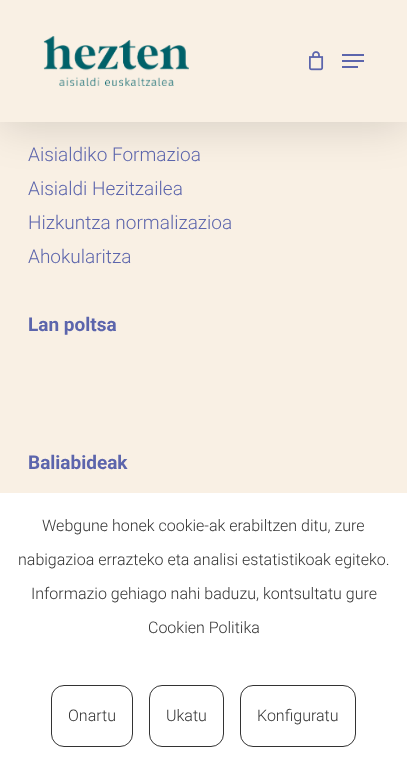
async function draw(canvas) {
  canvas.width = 407;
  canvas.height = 765;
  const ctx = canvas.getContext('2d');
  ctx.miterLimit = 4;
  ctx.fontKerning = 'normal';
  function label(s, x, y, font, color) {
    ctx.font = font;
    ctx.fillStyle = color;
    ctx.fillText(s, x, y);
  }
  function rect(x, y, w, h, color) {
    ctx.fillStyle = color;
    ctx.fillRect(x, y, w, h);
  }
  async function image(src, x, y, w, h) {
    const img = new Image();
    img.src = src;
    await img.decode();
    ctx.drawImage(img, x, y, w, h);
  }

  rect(0, 0, 407, 765, '#f9f0e4');
  ctx.fillStyle = '#00000026';
  ctx.filter = 'blur(22.5px)';
  ctx.beginPath();
  ctx.rect(0, 3, 407, 122);
  ctx.fill();
  ctx.filter = 'none';
  rect(0, 0, 407, 122, '#f9f0e4');
  await image('assets/img1.png', 43, 36, 146, 50);
  await image('assets/img2.png', 309, 51, 15, 20);
  rect(342, 54, 22, 2, '#5c65ac');
  rect(342, 66, 16, 2, '#5c65ac');
  rect(342, 60, 22, 2, '#5c65ac');
  label('Aisialdiko Formazioa', 28, 161, '300 19px Roboto', '#5c65ac');
  label('Aisialdi Hezitzailea', 28, 195, '300 19px Roboto', '#5c65ac');
  label('Hizkuntza normalizazioa', 28, 229, '300 19px Roboto', '#5c65ac');
  label('Ahokularitza', 28, 263, '300 19px Roboto', '#5c65ac');
  label('Lan poltsa', 28, 331, 'bold 19px Roboto', '#5c65ac');
  label('Baliabideak', 28, 469, 'bold 19px Roboto', '#5c65ac');
  rect(0, 493, 407, 272, '#fff');
  label('Webgune honek cookie-ak erabiltzen ditu, zure', 42, 531, '300 16px Roboto', '#333');
  label('nabigazioa errazteko eta analisi estatistikoak egiteko.', 18, 565, '300 16px Roboto', '#333');
  label('Informazio gehiago nahi baduzu, kontsultatu gure', 31, 599, '300 16px Roboto', '#333');
  label('Cookien Politika', 148, 633, '300 16px Roboto', '#333');
  ctx.beginPath();
  ctx.roundRect(51.5, 685.5, 81, 61, 12.5);
  ctx.strokeStyle = '#333';
  ctx.stroke();
  label('Onartu', 68, 721, '300 16px Roboto', '#333');
  ctx.beginPath();
  ctx.roundRect(149.5, 685.5, 74, 61, 12.5);
  ctx.stroke();
  label('Ukatu', 166, 721, '300 16px Roboto', '#333');
  ctx.beginPath();
  ctx.roundRect(240.5, 685.5, 115, 61, 12.5);
  ctx.stroke();
  label('Konfiguratu', 257, 721, '300 16px Roboto', '#333');
}

draw(document.querySelector('canvas'));
